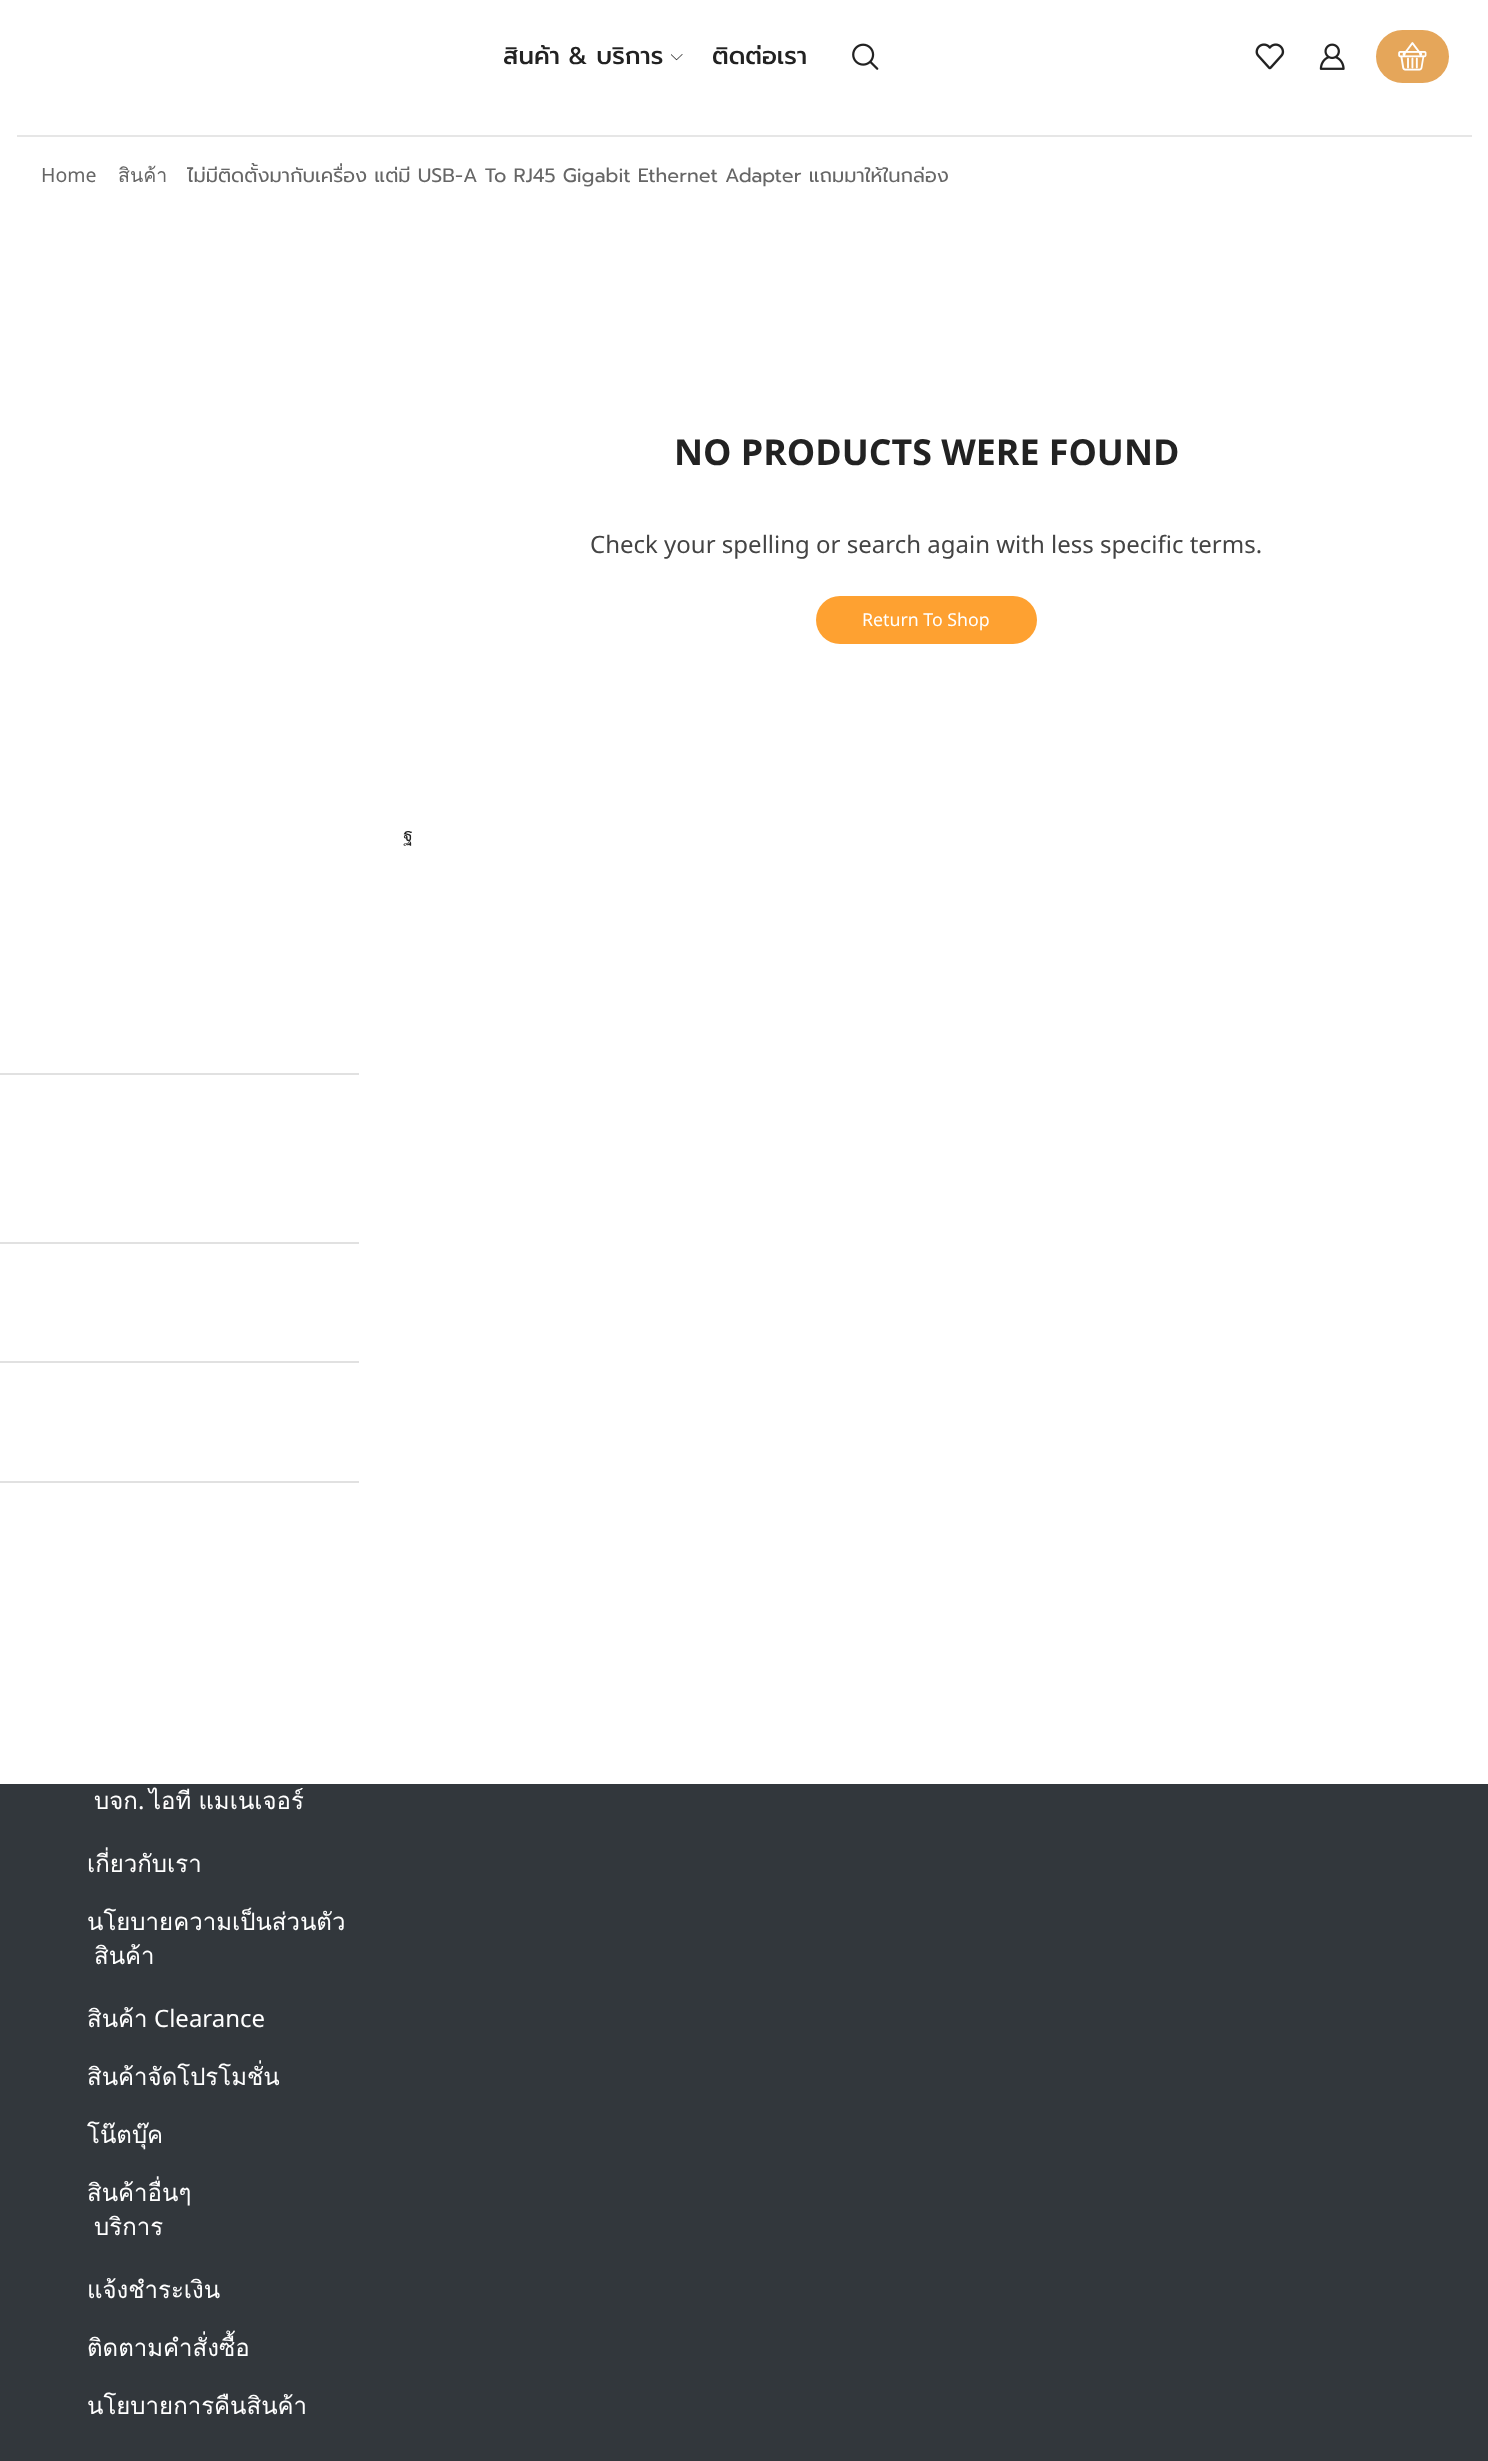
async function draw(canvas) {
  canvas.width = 1488;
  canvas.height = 2461;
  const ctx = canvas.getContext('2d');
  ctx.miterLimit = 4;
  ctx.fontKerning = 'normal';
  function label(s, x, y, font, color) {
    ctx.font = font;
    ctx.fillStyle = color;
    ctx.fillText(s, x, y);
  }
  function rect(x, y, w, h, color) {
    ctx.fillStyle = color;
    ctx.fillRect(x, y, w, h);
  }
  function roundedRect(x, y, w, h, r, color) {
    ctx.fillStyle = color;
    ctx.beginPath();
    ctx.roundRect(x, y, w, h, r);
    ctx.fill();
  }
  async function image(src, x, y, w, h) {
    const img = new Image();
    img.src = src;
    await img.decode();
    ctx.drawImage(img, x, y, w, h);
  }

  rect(0, 0, 1488, 2461, '#fff');
  label('สินค้า & บริการ', 503, 64, '500 24.25px Prompt', '#222');
  await image('assets/img1.png', 671, 54, 12, 7);
  label('ติดต่อเรา', 712, 64, '500 24.25px Prompt', '#222');
  await image('assets/img2.png', 852, 43, 27, 27);
  await image('assets/img3.png', 1255, 43, 30, 27);
  await image('assets/img4.png', 1319, 43, 26, 27);
  roundedRect(1376, 30, 73, 53, 26.5, '#e5a65a');
  await image('assets/img5.png', 1398, 42, 29, 29);
  rect(17, 135, 1455, 2, '#e6e6e6');
  label('Home', 41, 182, '19.5px Noto Sans', '#666');
  label('สินค้า', 118, 182, '19.5px Loma', '#666');
  label('ไม่มีติดตั้งมากับเครื่อง แต่มี USB-A To RJ45 Gigabit Ethernet Adapter แถมมาให้ในกล่อง', 187, 182, '19.5px Prompt', '#666');
  label('NO PRODUCTS WERE FOUND', 674, 465, 'bold 35.75px Noto Sans', '#222');
  label('Check your spelling or search again with less specific terms.', 590, 553, '24px Noto Sans', '#444');
  roundedRect(816, 596, 221, 48, 24, '#fea131');
  label('Return To Shop', 862, 626, '17.75px Noto Sans', '#fff');
  label('ฐ', 403, 841, '18px Loma', '#222');
  rect(0, 1073, 359, 2, '#e1e1e1');
  rect(0, 1242, 359, 2, '#e1e1e1');
  rect(0, 1361, 359, 2, '#e1e1e1');
  rect(0, 1481, 359, 2, '#e1e1e1');
  rect(0, 1784, 1488, 677, '#32373c');
  label('บจก', 94, 1809, '24px Loma', '#fff');
  label('.', 138, 1809, '24px Noto Sans', '#fff');
  ctx.wordSpacing = '-1px';
  label('ไอที แมเนเจอร์', 149, 1809, '24px Loma', '#fff');
  ctx.wordSpacing = '0px';
  label('เกี่ยวกับเรา', 87, 1872, '24px Loma', '#fff');
  label('นโยบายความเป็นส่วนตัว', 87, 1930, '24px Loma', '#fff');
  label('สินค้า', 94, 1964, '24px Loma', '#fff');
  label('สินค้า', 87, 2027, '24px Loma', '#fff');
  label('Clearance', 154, 2027, '24px Noto Sans', '#fff');
  label('สินค้าจัดโปรโมชั่น', 87, 2085, '24px Loma', '#fff');
  label('โน๊ตบุ๊ค', 87, 2143, '24px Loma', '#fff');
  label('สินค้าอื่นๆ', 87, 2201, '24px Loma', '#fff');
  label('บริการ', 94, 2235, '24px Loma', '#fff');
  label('แจ้งชำระเงิน', 87, 2298, '24px Loma', '#fff');
  label('ติดตามคำสั่งซื้อ', 87, 2356, '24px Loma', '#fff');
  label('นโยบายการคืนสินค้า', 87, 2414, '24px Loma', '#fff');
}

draw(document.querySelector('canvas'));
